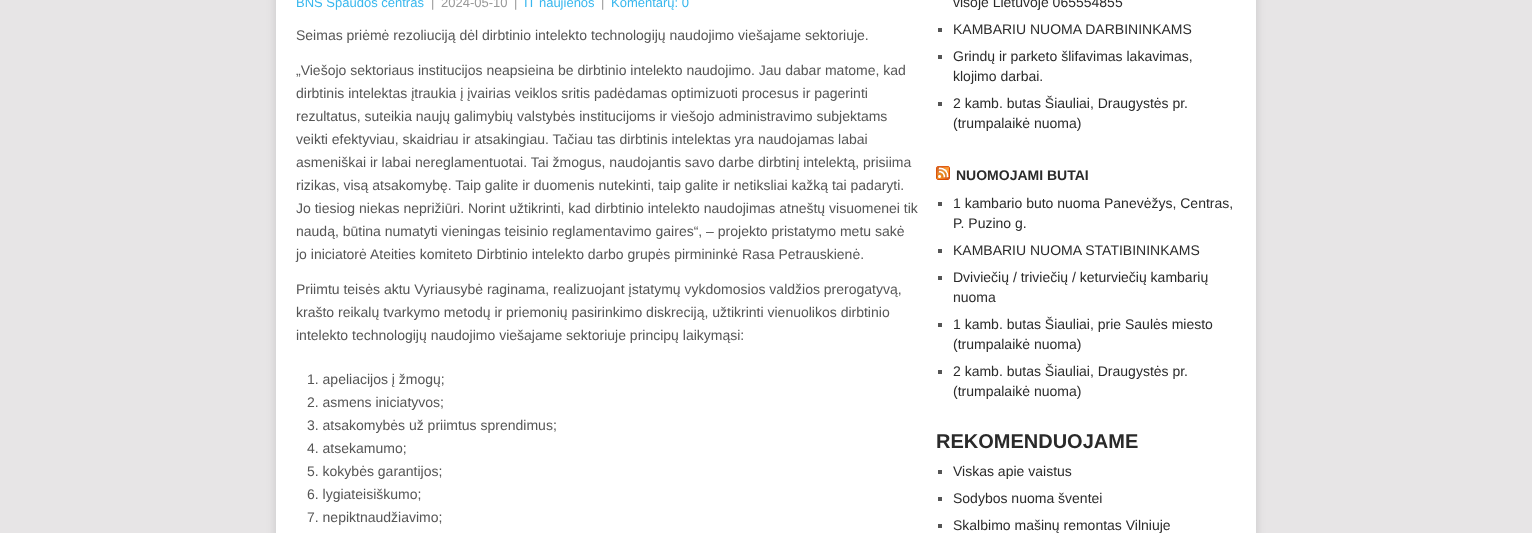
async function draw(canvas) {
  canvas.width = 1532;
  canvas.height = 533;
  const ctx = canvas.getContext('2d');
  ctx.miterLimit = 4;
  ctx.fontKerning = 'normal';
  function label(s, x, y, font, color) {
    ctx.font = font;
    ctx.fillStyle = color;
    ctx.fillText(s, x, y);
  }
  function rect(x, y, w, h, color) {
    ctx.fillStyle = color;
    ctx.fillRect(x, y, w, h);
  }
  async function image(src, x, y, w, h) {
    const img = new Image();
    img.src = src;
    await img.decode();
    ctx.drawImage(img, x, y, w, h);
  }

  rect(0, 0, 1532, 533, '#e7e5e6');
  ctx.fillStyle = '#3232322b';
  ctx.filter = 'blur(5px)';
  ctx.beginPath();
  ctx.rect(276, -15, 980, 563);
  ctx.fill();
  ctx.filter = 'none';
  rect(276, 0, 980, 533, '#fff');
  label('BNS Spaudos centras', 296, 7, '13px Liberation Sans', '#38b7ee');
  label('|', 431, 7, '13px Liberation Sans', '#999');
  label('2024-05-10', 441, 7, '13px Liberation Sans', '#999');
  label('|', 514, 7, '13px Liberation Sans', '#999');
  label('IT naujienos', 524, 7, '13px Liberation Sans', '#38b7ee');
  label('|', 601, 7, '13px Liberation Sans', '#999');
  label('Komentarų: 0', 611, 7, '13px Liberation Sans', '#38b7ee');
  label('Seimas priėmė rezoliuciją dėl dirbtinio intelekto technologijų naudojimo viešajame sektoriuje.', 296, 40, '14px Liberation Sans', '#555');
  label('„Viešojo sektoriaus institucijos neapsieina be dirbtinio intelekto naudojimo. Jau dabar matome, kad', 296, 75, '14px Liberation Sans', '#555');
  label('dirbtinis intelektas įtraukia į įvairias veiklos sritis padėdamas optimizuoti procesus ir pagerinti', 296, 98, '14px Liberation Sans', '#555');
  label('rezultatus, suteikia naujų galimybių valstybės institucijoms ir viešojo administravimo subjektams', 296, 121, '14px Liberation Sans', '#555');
  label('veikti efektyviau, skaidriau ir atsakingiau. Tačiau tas dirbtinis intelektas yra naudojamas labai', 296, 144, '14px Liberation Sans', '#555');
  label('asmeniškai ir labai nereglamentuotai. Tai žmogus, naudojantis savo darbe dirbtinį intelektą, prisiima', 296, 167, '14px Liberation Sans', '#555');
  label('rizikas, visą atsakomybę. Taip galite ir duomenis nutekinti, taip galite ir netiksliai kažką tai padaryti.', 296, 190, '14px Liberation Sans', '#555');
  label('Jo tiesiog niekas neprižiūri. Norint užtikrinti, kad dirbtinio intelekto naudojimas atneštų visuomenei tik', 296, 213, '14px Liberation Sans', '#555');
  label('naudą, būtina numatyti vieningas teisinio reglamentavimo gaires“, – projekto pristatymo metu sakė', 296, 236, '14px Liberation Sans', '#555');
  label('jo iniciatorė Ateities komiteto Dirbtinio intelekto darbo grupės pirmininkė Rasa Petrauskienė.', 296, 259, '14px Liberation Sans', '#555');
  label('Priimtu teisės aktu Vyriausybė raginama, realizuojant įstatymų vykdomosios valdžios prerogatyvą,', 296, 294, '14px Liberation Sans', '#555');
  label('krašto reikalų tvarkymo metodų ir priemonių pasirinkimo diskreciją, užtikrinti vienuolikos dirbtinio', 296, 317, '14px Liberation Sans', '#555');
  label('intelekto technologijų naudojimo viešajame sektoriuje principų laikymąsi:', 296, 340, '14px Liberation Sans', '#555');
  label('1. apeliacijos į žmogų;', 307, 384, '14px Liberation Sans', '#555');
  label('2. asmens iniciatyvos;', 307, 407, '14px Liberation Sans', '#555');
  label('3. atsakomybės už priimtus sprendimus;', 307, 430, '14px Liberation Sans', '#555');
  label('4. atsekamumo;', 307, 453, '14px Liberation Sans', '#555');
  label('5. kokybės garantijos;', 307, 476, '14px Liberation Sans', '#555');
  label('6. lygiateisiškumo;', 307, 499, '14px Liberation Sans', '#555');
  label('7. nepiktnaudžiavimo;', 307, 522, '14px Liberation Sans', '#555');
  label('visoje Lietuvoje 065554855', 953, 7, '14px Liberation Sans', '#2a2a2a');
  rect(938, 28, 4, 4, '#555');
  label('KAMBARIU NUOMA DARBININKAMS', 953, 34, '14px Liberation Sans', '#2a2a2a');
  rect(938, 55, 4, 4, '#555');
  label('Grindų ir parketo šlifavimas lakavimas,', 953, 61, '14px Liberation Sans', '#2a2a2a');
  label('klojimo darbai.', 953, 81, '14px Liberation Sans', '#2a2a2a');
  rect(938, 102, 4, 4, '#555');
  label('2 kamb. butas Šiauliai, Draugystės pr.', 953, 108, '14px Liberation Sans', '#2a2a2a');
  label('(trumpalaikė nuoma)', 953, 128, '14px Liberation Sans', '#2a2a2a');
  await image('assets/img1.png', 936, 166, 14, 14);
  label('NUOMOJAMI BUTAI', 956, 180, 'bold 14px Liberation Sans', '#2a2a2a');
  rect(938, 202, 4, 4, '#555');
  label('1 kambario buto nuoma Panevėžys, Centras,', 953, 208, '14px Liberation Sans', '#2a2a2a');
  label('P. Puzino g.', 953, 228, '14px Liberation Sans', '#2a2a2a');
  rect(938, 249, 4, 4, '#555');
  label('KAMBARIU NUOMA STATIBININKAMS', 953, 255, '14px Liberation Sans', '#2a2a2a');
  rect(938, 276, 4, 4, '#555');
  label('Dviviečių / triviečių / keturviečių kambarių', 953, 282, '14px Liberation Sans', '#2a2a2a');
  label('nuoma', 953, 302, '14px Liberation Sans', '#2a2a2a');
  rect(938, 323, 4, 4, '#555');
  label('1 kamb. butas Šiauliai, prie Saulės miesto', 953, 329, '14px Liberation Sans', '#2a2a2a');
  label('(trumpalaikė nuoma)', 953, 349, '14px Liberation Sans', '#2a2a2a');
  rect(938, 370, 4, 4, '#555');
  label('2 kamb. butas Šiauliai, Draugystės pr.', 953, 376, '14px Liberation Sans', '#2a2a2a');
  label('(trumpalaikė nuoma)', 953, 396, '14px Liberation Sans', '#2a2a2a');
  label('REKOMENDUOJAME', 936, 448, 'bold 20px Liberation Sans', '#2a2a2a');
  rect(938, 470, 4, 4, '#555');
  label('Viskas apie vaistus', 953, 476, '14px Liberation Sans', '#2a2a2a');
  rect(938, 497, 4, 4, '#555');
  label('Sodybos nuoma šventei', 953, 503, '14px Liberation Sans', '#2a2a2a');
  rect(938, 524, 4, 4, '#555');
  label('Skalbimo mašinų remontas Vilniuje', 953, 530, '14px Liberation Sans', '#2a2a2a');
}

draw(document.querySelector('canvas'));
